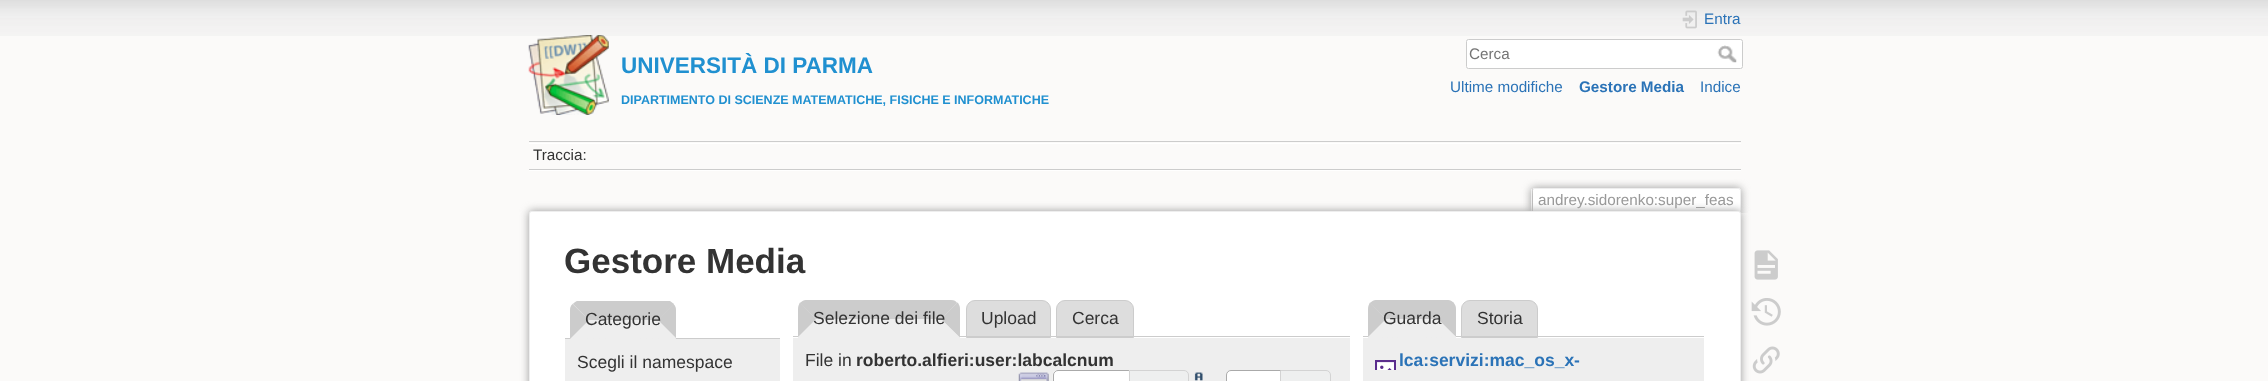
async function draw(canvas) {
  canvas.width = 2268;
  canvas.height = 381;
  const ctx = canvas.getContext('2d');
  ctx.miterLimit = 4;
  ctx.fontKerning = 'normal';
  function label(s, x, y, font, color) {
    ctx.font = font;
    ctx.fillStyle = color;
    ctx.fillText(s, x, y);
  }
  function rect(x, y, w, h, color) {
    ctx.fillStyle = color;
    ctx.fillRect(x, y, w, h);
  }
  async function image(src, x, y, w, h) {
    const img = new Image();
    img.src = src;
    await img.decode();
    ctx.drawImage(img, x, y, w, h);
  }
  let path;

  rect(0, 0, 2268, 381, '#fbfaf9');
  await image('assets/img1.png', 0, 0, 2268, 36);
  await image('assets/img2.png', 528, 35, 81, 80);
  label('UNIVERSITÀ DI PARMA', 621, 73, 'bold 22.5px Liberation Sans', '#2090d0');
  label('DIPARTIMENTO DI SCIENZE MATEMATICHE, FISICHE E INFORMATICHE', 621, 104, 'bold 12.5px Liberation Sans', '#2090d0');
  await image('assets/img3.png', 1682, 10, 15, 19);
  label('Entra', 1704, 24, '15.25px Liberation Sans', '#2b73b7');
  ctx.fillStyle = '#fff';
  ctx.beginPath();
  ctx.roundRect(1466.5, 39.5, 276, 29, 2);
  ctx.fill();
  ctx.strokeStyle = '#ccc';
  ctx.stroke();
  label('Cerca', 1469, 59, '15.25px Liberation Sans', '#757575');
  await image('assets/img4.png', 1717, 45, 20, 18);
  label('Ultime modifiche', 1450, 92, '15.25px Liberation Sans', '#2b73b7');
  label('Gestore Media', 1579, 92, 'bold 15.25px Liberation Sans', '#2b73b7');
  label('Indice', 1700, 92, '15.25px Liberation Sans', '#2b73b7');
  rect(529, 141, 1212, 1, '#ccc');
  rect(529, 170, 1212, 1, '#fff');
  rect(529, 143, 1212, 1, '#fff');
  rect(529, 169, 1212, 1, '#ccc');
  label('Traccia:', 533, 160, '15.25px Liberation Sans', '#333');
  ctx.save();
  ctx.beginPath();
  ctx.rect(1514, 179, 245, 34);
  ctx.clip();
  ctx.fillStyle = '#999';
  ctx.filter = 'blur(4px)';
  ctx.beginPath();
  ctx.roundRect(1531, 188, 210, 25, 2.5);
  ctx.fill();
  ctx.filter = 'none';
  ctx.restore();
  ctx.fillStyle = '#fff';
  ctx.beginPath();
  ctx.roundRect(1533, 189, 207, 24, [1, 1, 0, 0]);
  ctx.fill();
  rect(1533, 188, 207, 1, '#eee');
  rect(1740, 189, 1, 24, '#eee');
  rect(1531, 189, 1, 24, '#eee');
  label('andrey.sidorenko:super_feas', 1538, 205, '15.25px Liberation Sans', '#999');
  ctx.filter = 'blur(4.5px)';
  ctx.beginPath();
  ctx.roundRect(529, 211, 1212, 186, 2.5);
  ctx.fill();
  ctx.filter = 'none';
  ctx.fillStyle = '#fff';
  ctx.beginPath();
  ctx.roundRect(529.5, 211.5, 1211, 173, 2);
  ctx.fill();
  ctx.strokeStyle = '#eee';
  ctx.stroke();
  label('Gestore Media', 564, 273, 'bold 35px Liberation Sans', '#333');
  rect(565, 338, 215, 1, '#ccc');
  ctx.fillStyle = '#eee';
  ctx.beginPath();
  ctx.roundRect(570, 301, 106, 38, [9, 9, 0, 0]);
  ctx.fill();
  ctx.fillStyle = '#ccc';
  path = new Path2D('M670 301H577C575 302 574 303 573 304L589 320H658L674 304Z');
  ctx.fill(path);
  path = new Path2D('M673.5 304L657.5 320L676 338.5V310C676 307.5 675 305.5 673.5 304Z');
  ctx.fill(path);
  ctx.fillStyle = '#eee';
  path = new Path2D('M676 338L658 320H589L570 339Z');
  ctx.fill(path);
  ctx.fillStyle = '#ccc';
  path = new Path2D('M570 339L589 320L572.5 304C571 305.5 570 307.5 570 310Z');
  ctx.fill(path);
  label('Categorie', 585, 325, '17.5px Liberation Sans', '#333');
  rect(565, 339, 215, 42, '#eee');
  label('Scegli il namespace', 577, 368, '17.5px Liberation Sans', '#333');
  ctx.fillStyle = '#ddd';
  ctx.beginPath();
  ctx.roundRect(966.5, 300.5, 84, 37, [8.5, 8.5, 0, 0]);
  ctx.fill();
  ctx.strokeStyle = '#ccc';
  ctx.stroke();
  ctx.beginPath();
  ctx.roundRect(1056.5, 300.5, 77, 37, [8.5, 8.5, 0, 0]);
  ctx.fill();
  ctx.stroke();
  rect(793, 336, 557, 1, '#ccc');
  ctx.fillStyle = '#eee';
  ctx.beginPath();
  ctx.roundRect(798, 300, 162, 38, [9, 9, 0, 0]);
  ctx.fill();
  ctx.fillStyle = '#ccc';
  path = new Path2D('M806 300H951C954 300 956 301 957 303L941 319H816L800 303C802 301 804 300 806 300Z');
  ctx.fill(path);
  path = new Path2D('M957.5 302.5L941 319L960 337.5V309C960 306.5 959 304 957.5 302.5Z');
  ctx.fill(path);
  ctx.fillStyle = '#eee';
  path = new Path2D('M960 338L941 319H816L798 337V338Z');
  ctx.fill(path);
  ctx.fillStyle = '#ccc';
  path = new Path2D('M800 302.5C799 304 798 306.5 798 309V337L816 319Z');
  ctx.fill(path);
  label('Selezione dei file', 813, 324, '17.5px Liberation Sans', '#333');
  label('Upload', 981, 324, '17.5px Liberation Sans', '#333');
  label('Cerca', 1072, 324, '17.5px Liberation Sans', '#333');
  rect(793, 338, 557, 43, '#eee');
  label('File in', 805, 366, '17.5px Liberation Sans', '#333');
  label('roberto.alfieri:user:labcalcnum', 856, 366, 'bold 17.5px Liberation Sans', '#333');
  await image('assets/img5.png', 1018, 372, 31, 9);
  ctx.fillStyle = '#fff';
  path = new Path2D('M1058 370H1135V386H1058C1055 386 1053 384 1053 381V375C1053 372 1055 370 1058 370Z');
  ctx.fill(path);
  await image('assets/img6.png', 1052, 370, 4, 11);
  path = new Path2D('M1058 370.5H1134.5V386.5H1058C1055.5 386.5 1053.5 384.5 1053.5 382V375C1053.5 372.5 1055.5 370.5 1058 370.5Z');
  ctx.strokeStyle = '#aaa';
  ctx.stroke(path);
  await image('assets/img7.png', 1128, 370, 61, 11);
  path = new Path2D('M1129.5 370.5H1184C1186.5 370.5 1188.5 372.5 1188.5 375V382C1188.5 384.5 1186.5 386.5 1184 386.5H1129.5Z');
  ctx.strokeStyle = '#d3d3d3';
  ctx.stroke(path);
  await image('assets/img8.png', 1194, 372, 9, 9);
  path = new Path2D('M1231 370.5H1285.5V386.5H1231C1228.5 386.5 1226.5 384.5 1226.5 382V375C1226.5 372.5 1228.5 370.5 1231 370.5Z');
  ctx.fill(path);
  ctx.strokeStyle = '#aaa';
  ctx.stroke(path);
  await image('assets/img9.png', 1281, 370, 50, 11);
  path = new Path2D('M1280.5 370.5H1326C1328.5 370.5 1330.5 372.5 1330.5 375V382C1330.5 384.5 1328.5 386.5 1326 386.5H1280.5Z');
  ctx.strokeStyle = '#d3d3d3';
  ctx.stroke(path);
  ctx.fillStyle = '#ddd';
  ctx.beginPath();
  ctx.roundRect(1461.5, 300.5, 76, 37, [8.5, 8.5, 0, 0]);
  ctx.fill();
  ctx.strokeStyle = '#ccc';
  ctx.stroke();
  rect(1363, 336, 341, 1, '#ccc');
  ctx.fillStyle = '#eee';
  ctx.beginPath();
  ctx.roundRect(1368, 300, 88, 38, [9, 9, 0, 0]);
  ctx.fill();
  ctx.fillStyle = '#ccc';
  path = new Path2D('M1376 300H1448C1450 300 1452 301 1454 303L1438 319H1386L1370 303C1372 301 1374 300 1376 300Z');
  ctx.fill(path);
  path = new Path2D('M1453.5 302.5L1437.5 319L1456 337V309C1456 306.5 1455 304.5 1453.5 302.5Z');
  ctx.fill(path);
  ctx.fillStyle = '#eee';
  path = new Path2D('M1456 337L1438 319H1386L1368 337V338Z');
  ctx.fill(path);
  ctx.fillStyle = '#ccc';
  path = new Path2D('M1370 302.5C1369 304 1368 306.5 1368 309V337L1386 319Z');
  ctx.fill(path);
  label('Guarda', 1383, 324, '17.5px Liberation Sans', '#333');
  label('Storia', 1477, 324, '17.5px Liberation Sans', '#333');
  rect(1363, 338, 341, 43, '#eee');
  await image('assets/img10.png', 1375, 360, 21, 10);
  label('lca:servizi:mac_os_x-', 1399, 366, 'bold 17.5px Liberation Sans', '#2b73b7');
  await image('assets/img11.png', 1754, 250, 24, 30);
  await image('assets/img12.png', 1751, 298, 30, 28);
  await image('assets/img13.png', 1752, 346, 28, 28);
}

draw(document.querySelector('canvas'));
